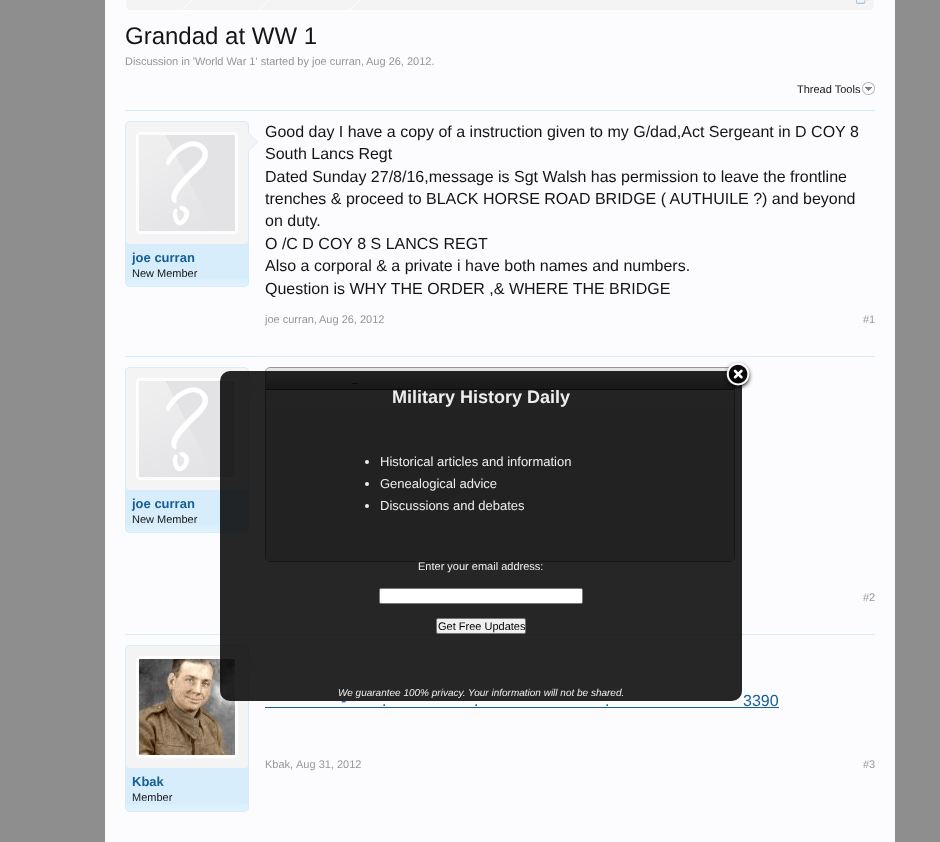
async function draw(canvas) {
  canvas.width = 940;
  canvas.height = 842;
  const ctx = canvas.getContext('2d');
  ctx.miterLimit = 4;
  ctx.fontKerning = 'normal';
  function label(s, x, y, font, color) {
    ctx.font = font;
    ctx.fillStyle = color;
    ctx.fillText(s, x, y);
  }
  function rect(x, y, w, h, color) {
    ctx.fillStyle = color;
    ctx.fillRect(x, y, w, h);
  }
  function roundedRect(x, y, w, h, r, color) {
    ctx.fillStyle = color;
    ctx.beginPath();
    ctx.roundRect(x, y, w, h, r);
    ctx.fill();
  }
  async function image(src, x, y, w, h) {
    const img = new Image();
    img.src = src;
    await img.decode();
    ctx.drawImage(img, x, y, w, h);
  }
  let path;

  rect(0, 0, 940, 842, '#8e8e8e');
  rect(105, 0, 790, 842, '#fcfcff');
  ctx.fillStyle = '#f4f4f4';
  ctx.beginPath();
  ctx.roundRect(125.5, -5.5, 749, 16, 4.5);
  ctx.fill();
  ctx.strokeStyle = '#fff';
  ctx.stroke();
  ctx.fillStyle = '#fff';
  path = new Path2D('M183 10V-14L195-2Z');
  ctx.fill(path);
  ctx.fillStyle = '#f4f4f4';
  path = new Path2D('M182 10V-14L194-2Z');
  ctx.fill(path);
  ctx.fillStyle = '#fff';
  path = new Path2D('M259 10V-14L271-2Z');
  ctx.fill(path);
  ctx.fillStyle = '#f4f4f4';
  path = new Path2D('M258 10V-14L270-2Z');
  ctx.fill(path);
  ctx.fillStyle = '#fff';
  path = new Path2D('M350 10V-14L362-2Z');
  ctx.fill(path);
  ctx.fillStyle = '#f4f4f4';
  path = new Path2D('M349 10V-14L361-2Z');
  ctx.fill(path);
  await image('assets/img1.png', 856, 0, 12, 4);
  label('Grandad at WW 1', 125, 44, '24px Liberation Sans', '#141414');
  label('Discussion in \'World War 1\' started by joe curran,', 125, 65, '11px Liberation Sans', '#969696');
  label('Aug 26, 2012.', 366, 65, '11px Liberation Sans', '#969696');
  label('Thread Tools', 797, 93, '11px Liberation Sans', '#141414');
  await image('assets/img2.png', 862, 82, 13, 13);
  rect(125, 110, 750, 1, '#d7edfc');
  roundedRect(125, 121, 124, 166, 5, '#d7edfc');
  await image('assets/img3.png', 125, 279, 124, 7);
  ctx.beginPath();
  ctx.roundRect(125.5, 121.5, 123, 165, 4.5);
  ctx.strokeStyle = '#d7edfc';
  ctx.stroke();
  roundedRect(126, 122, 122, 122, 4, '#f4f4f4');
  ctx.fillStyle = '#fcfcff';
  ctx.beginPath();
  ctx.roundRect(136.5, 132.5, 101, 101, 3.5);
  ctx.fill();
  ctx.strokeStyle = '#fff';
  ctx.stroke();
  await image('assets/img4.png', 139, 135, 96, 96);
  ctx.fillStyle = '#d7edfc';
  path = new Path2D('M248 152V132L258 142Z');
  ctx.fill(path);
  ctx.fillStyle = '#f4f4f4';
  path = new Path2D('M247 152V132L257 142Z');
  ctx.fill(path);
  label('joe curran', 132, 262, 'bold 13px Liberation Sans', '#176093');
  label('New Member', 132, 277, '11px Liberation Sans', '#141414');
  label('Good day I have a copy of a instruction given to my G/dad,Act Sergeant in D COY 8', 265, 137, '16px Liberation Sans', '#141414');
  label('South Lancs Regt', 265, 159, '16px Liberation Sans', '#141414');
  label('Dated Sunday 27/8/16,message is Sgt Walsh has permission to leave the frontline', 265, 182, '16px Liberation Sans', '#141414');
  label('trenches & proceed to BLACK HORSE ROAD BRIDGE ( AUTHUILE ?) and beyond', 265, 204, '16px Liberation Sans', '#141414');
  label('on duty.', 265, 226, '16px Liberation Sans', '#141414');
  label('O /C D COY 8 S LANCS REGT', 265, 249, '16px Liberation Sans', '#141414');
  label('Also a corporal & a private i have both names and numbers.', 265, 271, '16px Liberation Sans', '#141414');
  label('Question is WHY THE ORDER ,& WHERE THE BRIDGE', 265, 294, '16px Liberation Sans', '#141414');
  label('joe curran,', 265, 323, '11px Liberation Sans', '#969696');
  label('Aug 26, 2012', 319, 323, '11px Liberation Sans', '#969696');
  label('#1', 863, 323, '11px Liberation Sans', '#969696');
  rect(125, 356, 750, 1, '#d7edfc');
  roundedRect(125, 367, 124, 166, 5, '#d7edfc');
  await image('assets/img3.png', 125, 525, 124, 7);
  ctx.beginPath();
  ctx.roundRect(125.5, 367.5, 123, 165, 4.5);
  ctx.strokeStyle = '#d7edfc';
  ctx.stroke();
  roundedRect(126, 368, 122, 122, 4, '#f4f4f4');
  ctx.fillStyle = '#fcfcff';
  ctx.beginPath();
  ctx.roundRect(136.5, 378.5, 101, 101, 3.5);
  ctx.fill();
  ctx.strokeStyle = '#fff';
  ctx.stroke();
  await image('assets/img4.png', 139, 381, 96, 96);
  ctx.fillStyle = '#d7edfc';
  path = new Path2D('M248 398V378L258 388Z');
  ctx.fill(path);
  ctx.fillStyle = '#f4f4f4';
  path = new Path2D('M247 398V378L257 388Z');
  ctx.fill(path);
  label('joe curran', 132, 508, 'bold 13px Liberation Sans', '#176093');
  label('New Member', 132, 523, '11px Liberation Sans', '#141414');
  ctx.beginPath();
  ctx.roundRect(265.5, 367.5, 469, 194, 4.5);
  ctx.strokeStyle = '#989898';
  ctx.stroke();
  ctx.fillStyle = '#989898';
  ctx.beginPath();
  ctx.roundRect(266, 368, 468, 22, [4, 4, 0, 0]);
  ctx.fill();
  await image('assets/img5.png', 266, 368, 468, 21);
  rect(266, 389, 468, 1, '#525252');
  rect(352, 383, 6, 1, '#176093');
  roundedRect(266, 390, 468, 171, 4, '#e1e1e1');
  await image('assets/img6.png', 266, 390, 468, 19);
  label('#2', 863, 601, '11px Liberation Sans', '#969696');
  rect(125, 634, 750, 1, '#d7edfc');
  label('-', 341, 706, '16px Liberation Sans', '#176093');
  label('3390', 743, 706, '16px Liberation Sans', '#176093');
  label('.', 382, 706, '16px Liberation Sans', '#176093');
  label('.', 474, 706, '16px Liberation Sans', '#176093');
  label('.', 605, 706, '16px Liberation Sans', '#176093');
  rect(265, 707, 514, 1, '#176093');
  label('Kbak,', 265, 768, '11px Liberation Sans', '#969696');
  label('Aug 31, 2012', 296, 768, '11px Liberation Sans', '#969696');
  label('#3', 863, 768, '11px Liberation Sans', '#969696');
  roundedRect(125, 645, 124, 167, 5, '#d7edfc');
  await image('assets/img3.png', 125, 804, 124, 7);
  ctx.beginPath();
  ctx.roundRect(125.5, 645.5, 123, 166, 4.5);
  ctx.strokeStyle = '#d7edfc';
  ctx.stroke();
  roundedRect(126, 646, 122, 122, 4, '#f4f4f4');
  ctx.fillStyle = '#fcfcff';
  ctx.beginPath();
  ctx.roundRect(136.5, 656.5, 101, 101, 3.5);
  ctx.fill();
  ctx.strokeStyle = '#fff';
  ctx.stroke();
  await image('assets/img7.png', 139, 659, 96, 96);
  ctx.fillStyle = '#d7edfc';
  path = new Path2D('M248 676V656L258 666Z');
  ctx.fill(path);
  ctx.fillStyle = '#f4f4f4';
  path = new Path2D('M247 676V656L257 666Z');
  ctx.fill(path);
  label('Kbak', 132, 786, 'bold 13px Liberation Sans', '#176093');
  label('Member', 132, 801, '11px Liberation Sans', '#141414');
  roundedRect(220, 371, 522, 330, 10, '#000000d9');
  await image('assets/img8.png', 724, 361, 29, 29);
  label('Military History Daily', 392, 403, 'bold 18px Liberation Sans', '#eee');
  ctx.beginPath();
  ctx.arc(367, 462, 2, 0, 2 * Math.PI);
  ctx.fill();
  label('Historical articles and information', 380, 466, '13px Liberation Sans', '#eee');
  ctx.beginPath();
  ctx.arc(367, 484, 2, 0, 2 * Math.PI);
  ctx.fill();
  label('Genealogical advice', 380, 488, '13px Liberation Sans', '#eee');
  ctx.beginPath();
  ctx.arc(367, 506, 2, 0, 2 * Math.PI);
  ctx.fill();
  label('Discussions and debates', 380, 510, '13px Liberation Sans', '#eee');
  label('Enter your email address:', 418, 570, '11px Liberation Sans', '#eee');
  ctx.fillStyle = '#fff';
  ctx.beginPath();
  ctx.roundRect(379.5, 588.5, 203, 15, 1.5);
  ctx.fill();
  ctx.strokeStyle = '#767676';
  ctx.stroke();
  ctx.fillStyle = '#efefef';
  ctx.beginPath();
  ctx.roundRect(436.5, 618.5, 89, 15, 1.5);
  ctx.fill();
  ctx.stroke();
  label('Get Free Updates', 438, 630, '11px Liberation Sans', '#000');
  label('We guarantee 100% privacy. Your information will not be shared.', 338, 696, 'italic 10px Liberation Sans', '#eee');
}

draw(document.querySelector('canvas'));
